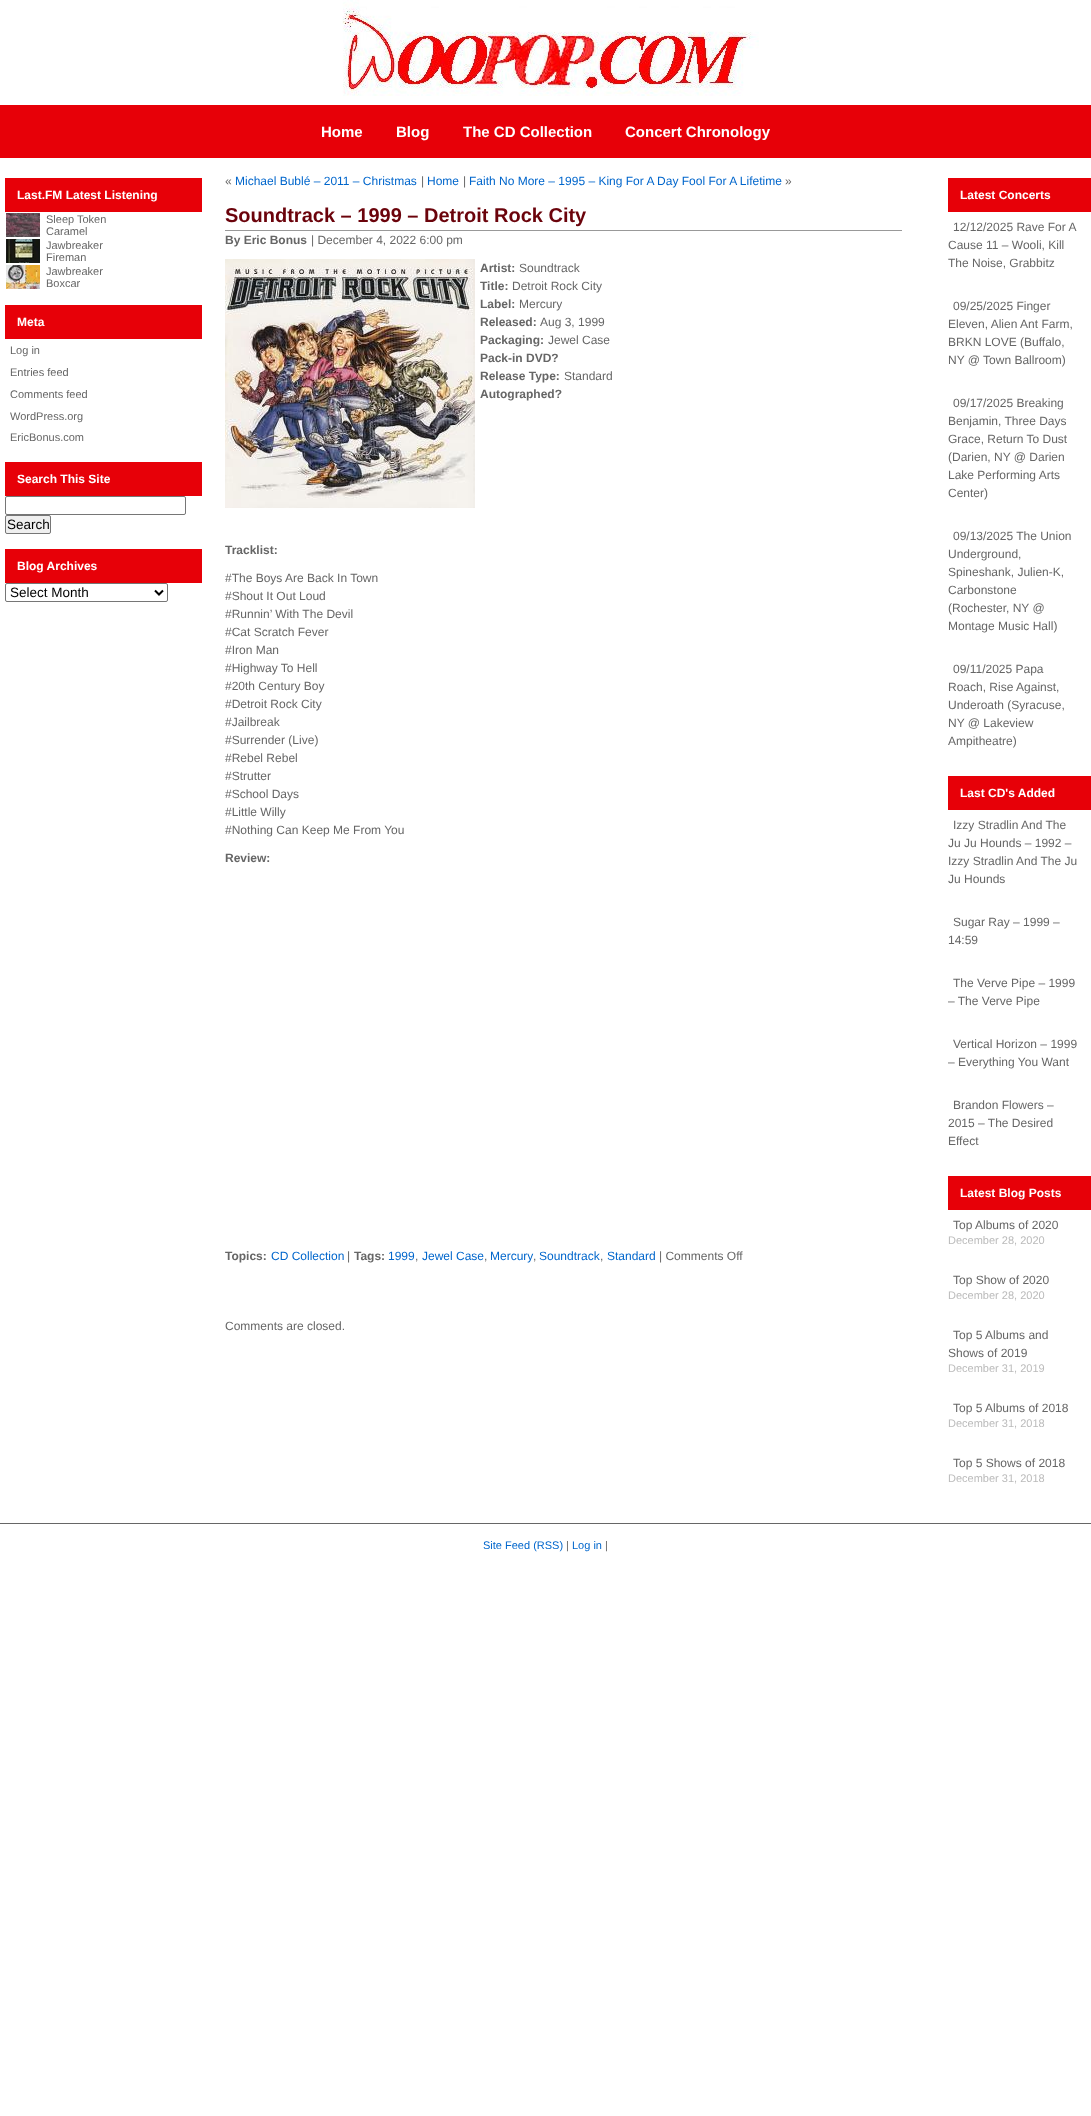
async function draw(canvas) {
  canvas.width = 1091;
  canvas.height = 2116;
  const ctx = canvas.getContext('2d');
  ctx.miterLimit = 4;
  ctx.fontKerning = 'normal';
  function label(s, x, y, font, color) {
    ctx.font = font;
    ctx.fillStyle = color;
    ctx.fillText(s, x, y);
  }
  function rect(x, y, w, h, color) {
    ctx.fillStyle = color;
    ctx.fillRect(x, y, w, h);
  }
  async function image(src, x, y, w, h) {
    const img = new Image();
    img.src = src;
    await img.decode();
    ctx.drawImage(img, x, y, w, h);
  }
  let path;

  rect(0, 0, 1091, 2116, '#fff');
  await image('assets/img1.png', 342, 0, 417, 96);
  rect(0, 105, 1091, 53, '#e70008');
  label('Home', 321, 137, 'bold 15px Liberation Sans', '#fff');
  label('Blog', 396, 137, 'bold 15px Liberation Sans', '#fff');
  label('The CD Collection', 463, 137, 'bold 15px Liberation Sans', '#fff');
  label('Concert Chronology', 625, 137, 'bold 15px Liberation Sans', '#fff');
  rect(5, 178, 197, 34, '#e70008');
  label('Last.FM Latest Listening', 17, 199, 'bold 12px Liberation Sans', '#fff');
  await image('assets/img2.png', 6, 213, 34, 24);
  label('Sleep Token', 46, 223, '11px Liberation Sans', '#666');
  label('Caramel', 46, 235, '11px Liberation Sans', '#666');
  await image('assets/img3.png', 6, 239, 34, 24);
  label('Jawbreaker', 46, 249, '11px Liberation Sans', '#666');
  label('Fireman', 46, 261, '11px Liberation Sans', '#666');
  await image('assets/img4.png', 6, 265, 34, 24);
  label('Jawbreaker', 46, 275, '11px Liberation Sans', '#666');
  label('Boxcar', 46, 287, '11px Liberation Sans', '#666');
  rect(5, 305, 197, 34, '#e70008');
  label('Meta', 17, 326, 'bold 12px Liberation Sans', '#fff');
  label('Log in', 10, 354, '11px Liberation Sans', '#666');
  label('Entries feed', 10, 376, '11px Liberation Sans', '#666');
  label('Comments feed', 10, 398, '11px Liberation Sans', '#666');
  label('WordPress.org', 10, 420, '11px Liberation Sans', '#666');
  label('EricBonus.com', 10, 441, '11px Liberation Sans', '#666');
  rect(5, 462, 197, 34, '#e70008');
  label('Search This Site', 17, 483, 'bold 12px Liberation Sans', '#fff');
  ctx.beginPath();
  ctx.roundRect(5.5, 496.5, 180, 18, 1.5);
  ctx.strokeStyle = '#767676';
  ctx.stroke();
  ctx.fillStyle = '#efefef';
  ctx.beginPath();
  ctx.roundRect(5.5, 515.5, 45, 18, 1.5);
  ctx.fill();
  ctx.stroke();
  label('Search', 7, 529, '13.5px Liberation Sans', '#000');
  rect(5, 549, 197, 34, '#e70008');
  label('Blog Archives', 17, 570, 'bold 12px Liberation Sans', '#fff');
  ctx.beginPath();
  ctx.roundRect(5.5, 583.5, 162, 18, 1.5);
  ctx.stroke();
  path = new Path2D('M155 590.5L159 594.5L163 590.5');
  ctx.strokeStyle = '#000';
  ctx.lineWidth = 2;
  ctx.stroke(path);
  label('Select Month', 10, 597, '13.5px Liberation Sans', '#000');
  label('«', 225, 185, '12px Liberation Sans', '#666');
  label('Michael Bublé – 2011 – Christmas', 235, 185, '12px Liberation Sans', '#06c');
  label('|', 421, 185, '12px Liberation Sans', '#666');
  label('Home', 427, 185, '12px Liberation Sans', '#06c');
  label('|', 463, 185, '12px Liberation Sans', '#666');
  label('Faith No More – 1995 – King For A Day Fool For A Lifetime', 469, 185, '12px Liberation Sans', '#06c');
  label('»', 785, 185, '12px Liberation Sans', '#666');
  rect(225, 230, 677, 1, '#999');
  label('Soundtrack – 1999 – Detroit Rock City', 225, 222, 'bold 20px Liberation Sans', '#6b030b');
  label('By Eric Bonus', 225, 244, 'bold 12px Liberation Sans', '#666');
  label('| December 4, 2022 6:00 pm', 311, 244, '12px Liberation Sans', '#666');
  await image('assets/img5.png', 225, 259, 250, 249);
  label('Artist:', 480, 272, 'bold 12px Liberation Sans', '#666');
  label('Soundtrack', 519, 272, '12px Liberation Sans', '#666');
  label('Title:', 480, 290, 'bold 12px Liberation Sans', '#666');
  label('Detroit Rock City', 512, 290, '12px Liberation Sans', '#666');
  label('Label:', 480, 308, 'bold 12px Liberation Sans', '#666');
  label('Mercury', 519, 308, '12px Liberation Sans', '#666');
  label('Released:', 480, 326, 'bold 12px Liberation Sans', '#666');
  label('Aug 3, 1999', 540, 326, '12px Liberation Sans', '#666');
  label('Packaging:', 480, 344, 'bold 12px Liberation Sans', '#666');
  label('Jewel Case', 548, 344, '12px Liberation Sans', '#666');
  label('Pack-in DVD?', 480, 362, 'bold 12px Liberation Sans', '#666');
  label('Release Type:', 480, 380, 'bold 12px Liberation Sans', '#666');
  label('Standard', 564, 380, '12px Liberation Sans', '#666');
  label('Autographed?', 480, 398, 'bold 12px Liberation Sans', '#666');
  label('Tracklist:', 225, 554, 'bold 12px Liberation Sans', '#666');
  label('#The Boys Are Back In Town', 225, 582, '12px Liberation Sans', '#666');
  label('#Shout It Out Loud', 225, 600, '12px Liberation Sans', '#666');
  label('#Runnin’ With The Devil', 225, 618, '12px Liberation Sans', '#666');
  label('#Cat Scratch Fever', 225, 636, '12px Liberation Sans', '#666');
  label('#Iron Man', 225, 654, '12px Liberation Sans', '#666');
  label('#Highway To Hell', 225, 672, '12px Liberation Sans', '#666');
  label('#20th Century Boy', 225, 690, '12px Liberation Sans', '#666');
  label('#Detroit Rock City', 225, 708, '12px Liberation Sans', '#666');
  label('#Jailbreak', 225, 726, '12px Liberation Sans', '#666');
  label('#Surrender (Live)', 225, 744, '12px Liberation Sans', '#666');
  label('#Rebel Rebel', 225, 762, '12px Liberation Sans', '#666');
  label('#Strutter', 225, 780, '12px Liberation Sans', '#666');
  label('#School Days', 225, 798, '12px Liberation Sans', '#666');
  label('#Little Willy', 225, 816, '12px Liberation Sans', '#666');
  label('#Nothing Can Keep Me From You', 225, 834, '12px Liberation Sans', '#666');
  label('Review:', 225, 862, 'bold 12px Liberation Sans', '#666');
  label('Topics:', 225, 1260, 'bold 12px Liberation Sans', '#666');
  label('CD Collection', 271, 1260, '12px Liberation Sans', '#06c');
  label('|', 347, 1260, '12px Liberation Sans', '#666');
  label('Tags:', 354, 1260, 'bold 12px Liberation Sans', '#666');
  label('1999', 388, 1260, '12px Liberation Sans', '#06c');
  label(',', 415, 1260, '12px Liberation Sans', '#666');
  label('Jewel Case', 422, 1260, '12px Liberation Sans', '#06c');
  label(',', 484, 1260, '12px Liberation Sans', '#666');
  label('Mercury', 490, 1260, '12px Liberation Sans', '#06c');
  label(',', 533, 1260, '12px Liberation Sans', '#666');
  label('Soundtrack', 539, 1260, '12px Liberation Sans', '#06c');
  label(',', 600, 1260, '12px Liberation Sans', '#666');
  label('Standard', 607, 1260, '12px Liberation Sans', '#06c');
  label('| Comments Off', 659, 1260, '12px Liberation Sans', '#666');
  label('Comments are closed.', 225, 1330, '12px Liberation Sans', '#666');
  rect(948, 178, 143, 34, '#e70008');
  label('Latest Concerts', 960, 199, 'bold 12px Liberation Sans', '#fff');
  label('12/12/2025 Rave For A', 953, 231, '12px Liberation Sans', '#666');
  label('Cause 11 – Wooli, Kill', 948, 249, '12px Liberation Sans', '#666');
  label('The Noise, Grabbitz', 948, 267, '12px Liberation Sans', '#666');
  label('09/25/2025 Finger', 953, 310, '12px Liberation Sans', '#666');
  label('Eleven, Alien Ant Farm,', 948, 328, '12px Liberation Sans', '#666');
  label('BRKN LOVE (Buffalo,', 948, 346, '12px Liberation Sans', '#666');
  label('NY @ Town Ballroom)', 948, 364, '12px Liberation Sans', '#666');
  label('09/17/2025 Breaking', 953, 407, '12px Liberation Sans', '#666');
  label('Benjamin, Three Days', 948, 425, '12px Liberation Sans', '#666');
  label('Grace, Return To Dust', 948, 443, '12px Liberation Sans', '#666');
  label('(Darien, NY @ Darien', 948, 461, '12px Liberation Sans', '#666');
  label('Lake Performing Arts', 948, 479, '12px Liberation Sans', '#666');
  label('Center)', 948, 497, '12px Liberation Sans', '#666');
  label('09/13/2025 The Union', 953, 540, '12px Liberation Sans', '#666');
  label('Underground,', 948, 558, '12px Liberation Sans', '#666');
  label('Spineshank, Julien-K,', 948, 576, '12px Liberation Sans', '#666');
  label('Carbonstone', 948, 594, '12px Liberation Sans', '#666');
  label('(Rochester, NY @', 948, 612, '12px Liberation Sans', '#666');
  label('Montage Music Hall)', 948, 630, '12px Liberation Sans', '#666');
  label('09/11/2025 Papa', 953, 673, '12px Liberation Sans', '#666');
  label('Roach, Rise Against,', 948, 691, '12px Liberation Sans', '#666');
  label('Underoath (Syracuse,', 948, 709, '12px Liberation Sans', '#666');
  label('NY @ Lakeview', 948, 727, '12px Liberation Sans', '#666');
  label('Ampitheatre)', 948, 745, '12px Liberation Sans', '#666');
  rect(948, 776, 143, 34, '#e70008');
  label('Last CD\'s Added', 960, 797, 'bold 12px Liberation Sans', '#fff');
  label('Izzy Stradlin And The', 953, 829, '12px Liberation Sans', '#666');
  label('Ju Ju Hounds – 1992 –', 948, 847, '12px Liberation Sans', '#666');
  label('Izzy Stradlin And The Ju', 948, 865, '12px Liberation Sans', '#666');
  label('Ju Hounds', 948, 883, '12px Liberation Sans', '#666');
  label('Sugar Ray – 1999 –', 953, 926, '12px Liberation Sans', '#666');
  label('14:59', 948, 944, '12px Liberation Sans', '#666');
  label('The Verve Pipe – 1999', 953, 987, '12px Liberation Sans', '#666');
  label('– The Verve Pipe', 948, 1005, '12px Liberation Sans', '#666');
  label('Vertical Horizon – 1999', 953, 1048, '12px Liberation Sans', '#666');
  label('– Everything You Want', 948, 1066, '12px Liberation Sans', '#666');
  label('Brandon Flowers –', 953, 1109, '12px Liberation Sans', '#666');
  label('2015 – The Desired', 948, 1127, '12px Liberation Sans', '#666');
  label('Effect', 948, 1145, '12px Liberation Sans', '#666');
  rect(948, 1176, 143, 34, '#e70008');
  label('Latest Blog Posts', 960, 1197, 'bold 12px Liberation Sans', '#fff');
  label('Top Albums of 2020', 953, 1229, '12px Liberation Sans', '#666');
  label('December 28, 2020', 948, 1244, '11px Liberation Sans', '#bbb');
  label('Top Show of 2020', 953, 1284, '12px Liberation Sans', '#666');
  label('December 28, 2020', 948, 1299, '11px Liberation Sans', '#bbb');
  label('Top 5 Albums and', 953, 1339, '12px Liberation Sans', '#666');
  label('Shows of 2019', 948, 1357, '12px Liberation Sans', '#666');
  label('December 31, 2019', 948, 1372, '11px Liberation Sans', '#bbb');
  label('Top 5 Albums of 2018', 953, 1412, '12px Liberation Sans', '#666');
  label('December 31, 2018', 948, 1427, '11px Liberation Sans', '#bbb');
  label('Top 5 Shows of 2018', 953, 1467, '12px Liberation Sans', '#666');
  label('December 31, 2018', 948, 1482, '11px Liberation Sans', '#bbb');
  rect(0, 1523, 1091, 1, '#666');
  label('Site Feed (RSS)', 483, 1549, '11px Liberation Sans', '#06c');
  label('|', 566, 1549, '11px Liberation Sans', '#666');
  label('Log in', 572, 1549, '11px Liberation Sans', '#06c');
  label('|', 605, 1549, '11px Liberation Sans', '#666');
}

draw(document.querySelector('canvas'));
